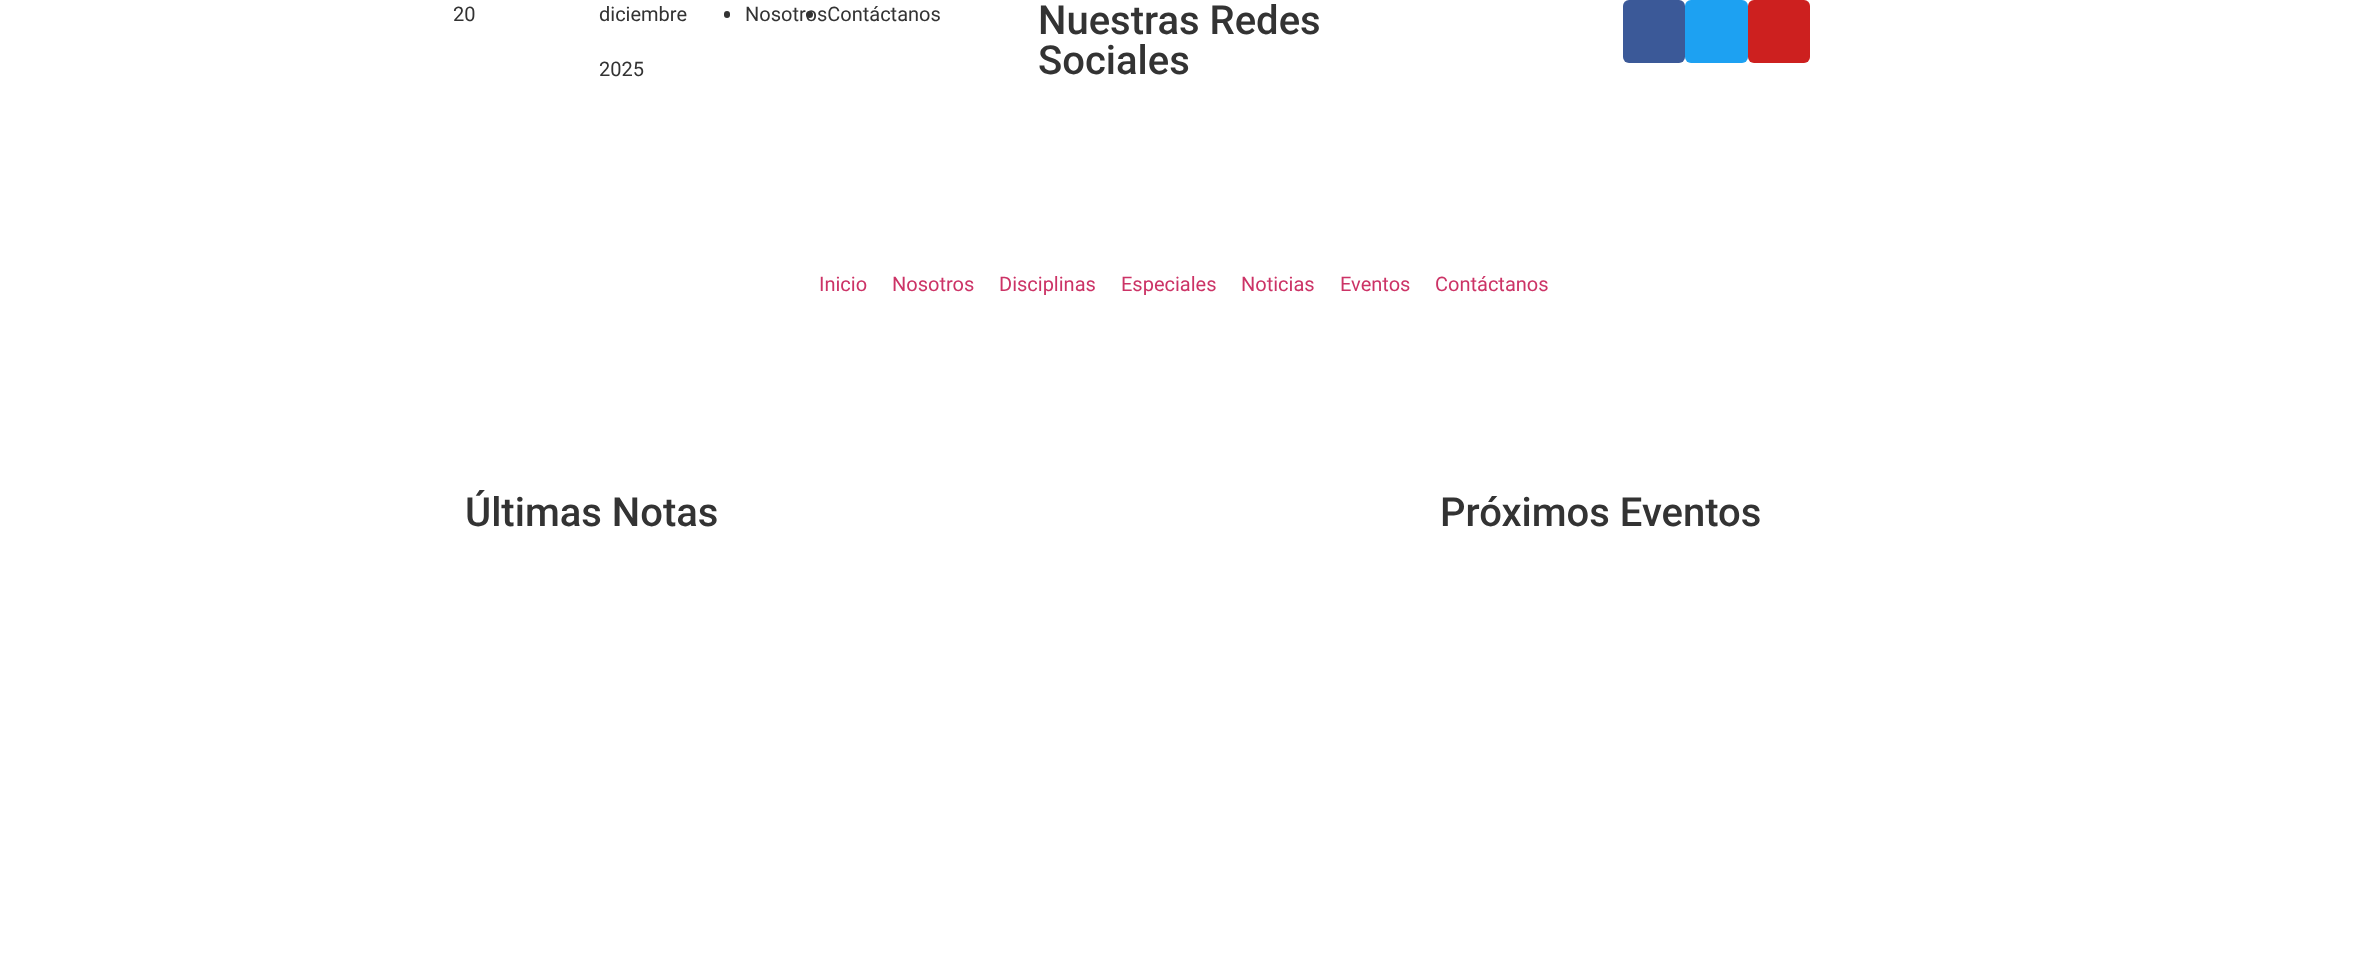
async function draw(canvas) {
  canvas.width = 2367;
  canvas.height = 972;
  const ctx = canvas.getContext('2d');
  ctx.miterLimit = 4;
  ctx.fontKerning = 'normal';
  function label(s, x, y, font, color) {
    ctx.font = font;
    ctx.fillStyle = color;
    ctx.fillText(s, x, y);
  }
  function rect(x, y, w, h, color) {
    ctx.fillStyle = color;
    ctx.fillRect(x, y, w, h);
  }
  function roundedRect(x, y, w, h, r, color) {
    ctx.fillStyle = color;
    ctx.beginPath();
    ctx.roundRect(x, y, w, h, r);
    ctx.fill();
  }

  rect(0, 0, 2367, 972, '#fff');
  label('20', 453, 21, '20px Roboto', '#333');
  label('diciembre', 599, 21, '20px Roboto', '#333');
  label('2025', 599, 76, '20px Roboto', '#333');
  roundedRect(724, 11, 6, 7, 3, '#333');
  label('NosotrosContáctanos', 745, 21, '20px Roboto', '#333');
  ctx.beginPath();
  ctx.arc(809.5, 14.5, 3.5, 0, 2 * Math.PI);
  ctx.fill();
  label('Nuestras Redes', 1038, 34, '500 40px Roboto', '#333');
  label('Sociales', 1038, 74, '500 40px Roboto', '#333');
  roundedRect(1623, 0, 62, 63, 6, '#3b5998');
  roundedRect(1685, 0, 63, 63, 6, '#1da1f2');
  roundedRect(1748, 0, 62, 63, 6, '#cd201f');
  label('Inicio', 819, 291, '20px Roboto', '#c36');
  label('Nosotros', 892, 291, '20px Roboto', '#c36');
  label('Disciplinas', 999, 291, '20px Roboto', '#c36');
  label('Especiales', 1121, 291, '20px Roboto', '#c36');
  label('Noticias', 1241, 291, '20px Roboto', '#c36');
  label('Eventos', 1340, 291, '20px Roboto', '#c36');
  label('Contáctanos', 1435, 291, '20px Roboto', '#c36');
  label('Últimas Notas', 465, 526, '500 40px Roboto', '#333');
  label('Próximos Eventos', 1440, 526, '500 40px Roboto', '#333');
}

draw(document.querySelector('canvas'));
